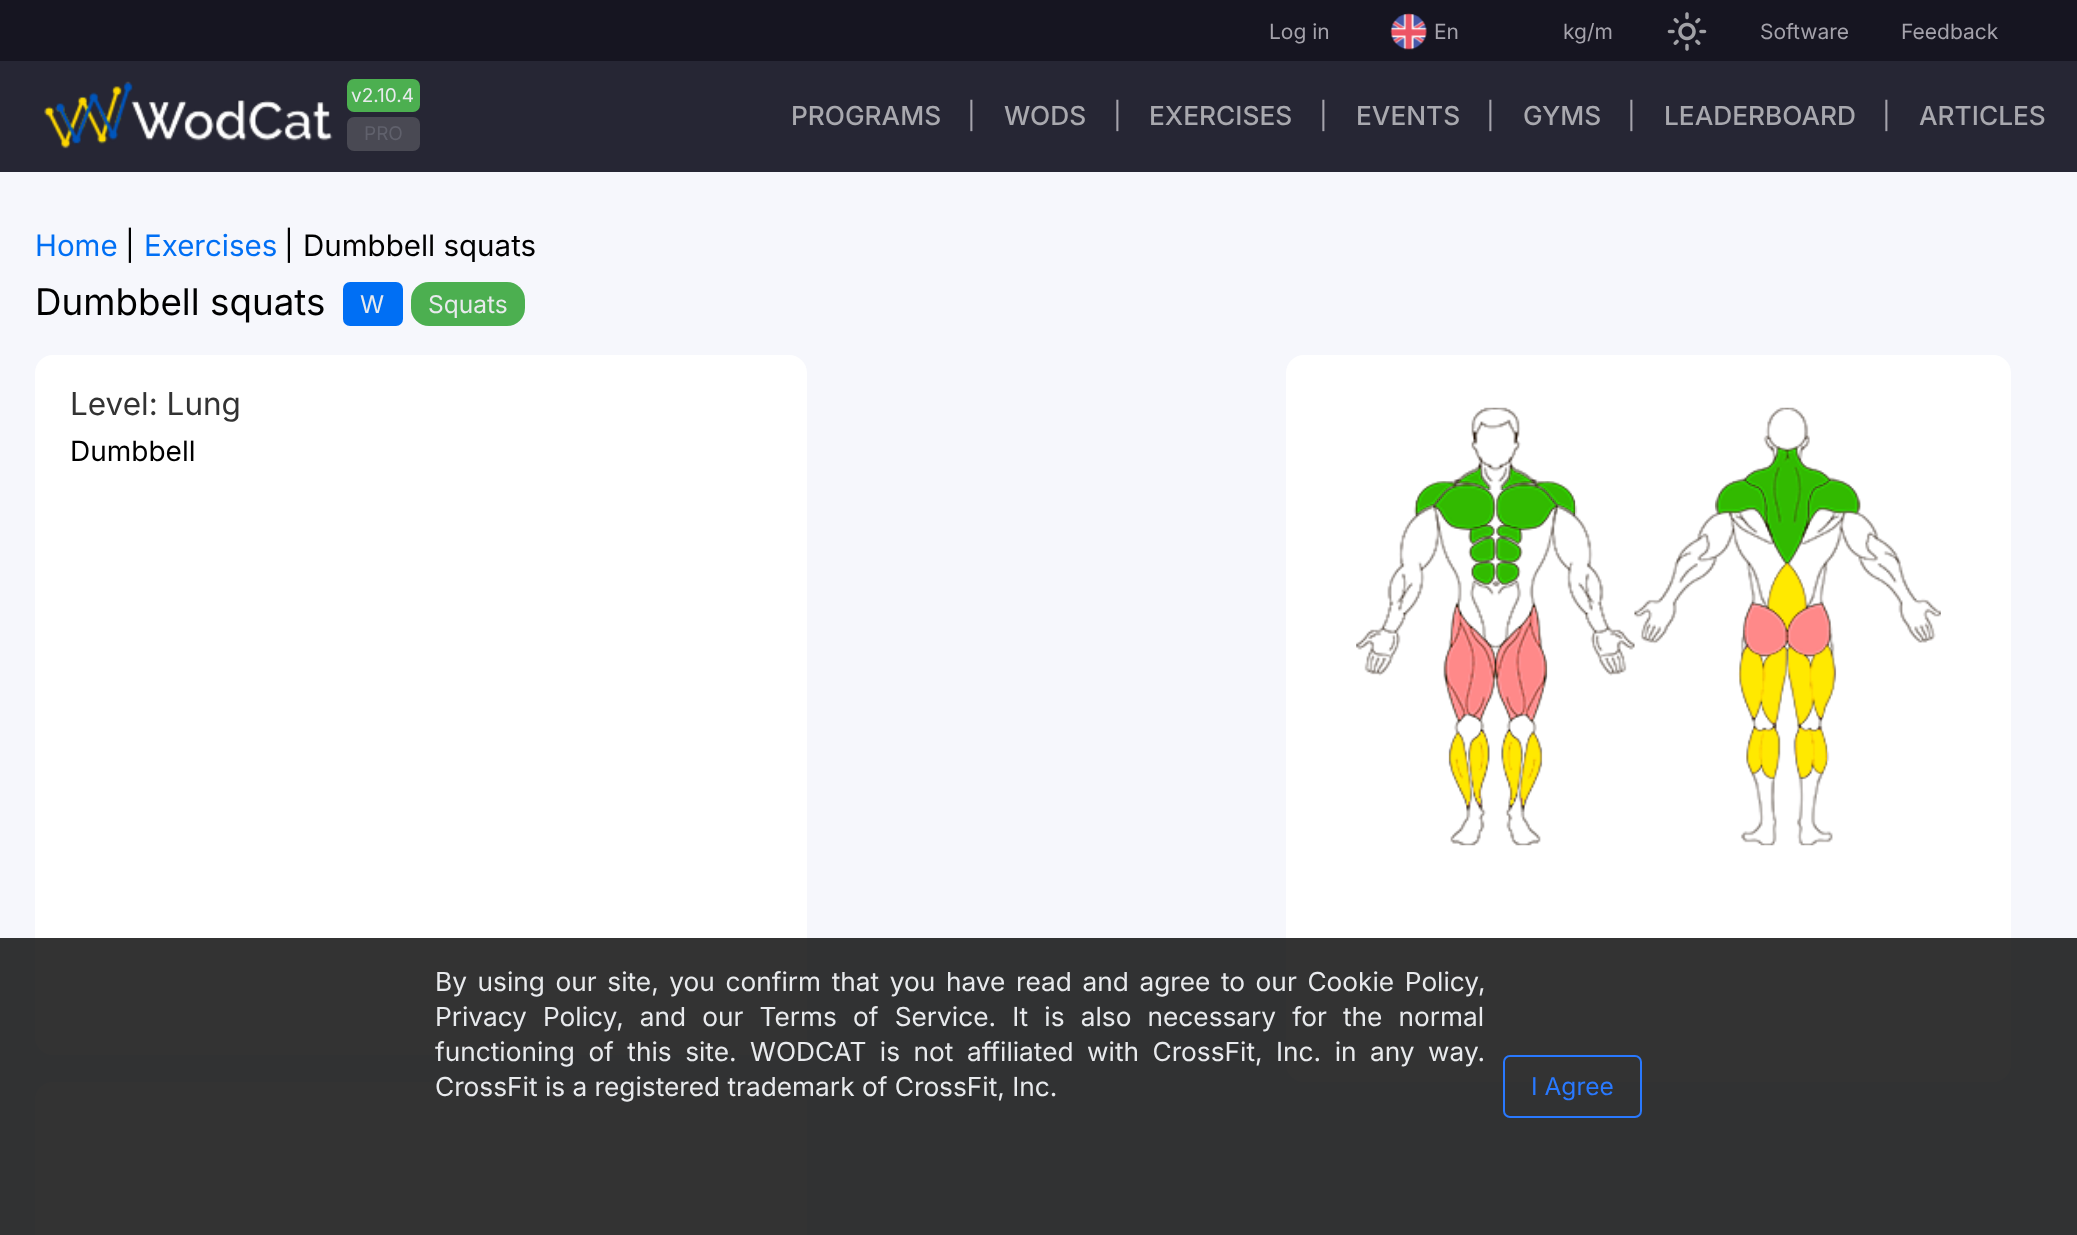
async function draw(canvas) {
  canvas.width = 2077;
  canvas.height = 1235;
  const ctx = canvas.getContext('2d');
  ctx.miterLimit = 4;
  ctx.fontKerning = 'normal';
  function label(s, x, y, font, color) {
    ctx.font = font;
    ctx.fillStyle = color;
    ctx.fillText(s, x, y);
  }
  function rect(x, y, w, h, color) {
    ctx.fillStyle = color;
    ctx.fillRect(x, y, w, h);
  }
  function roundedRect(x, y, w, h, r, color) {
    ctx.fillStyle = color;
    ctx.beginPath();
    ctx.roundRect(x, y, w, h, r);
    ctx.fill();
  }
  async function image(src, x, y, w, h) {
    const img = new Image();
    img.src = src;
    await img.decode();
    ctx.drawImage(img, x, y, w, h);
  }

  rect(0, 0, 2077, 1235, '#f6f7fc');
  label('Home', 35, 256, '29.5px Inter', '#006ff4');
  label('|', 125, 256, '29.5px Inter', '#000');
  label('Exercises', 144, 256, '29.5px Inter', '#006ff4');
  label('|', 284, 256, '29.5px Inter', '#000');
  label('Dumbbell squats', 303, 256, '29.5px Inter', '#000');
  label('Dumbbell squats', 35, 315, '36.75px Inter', '#000');
  roundedRect(343, 282, 60, 44, 7, '#006ff4');
  label('W', 360, 313, '24.5px Inter', '#e8eaed');
  roundedRect(411, 282, 114, 44, 18, '#4caf50');
  label('Squats', 428, 313, '24.5px Inter', '#e8eaed');
  roundedRect(35, 355, 772, 700, 18, '#fff');
  label('Level: Lung', 70, 415, '31.5px Inter', '#333');
  label('Dumbbell', 70, 461, '28px Inter', '#000');
  roundedRect(1286, 355, 725, 727, 18, '#fff');
  await image('assets/img1.png', 1356, 407, 279, 439);
  await image('assets/img2.png', 1452, 463, 86, 27);
  await image('assets/img3.png', 1415, 481, 160, 36);
  await image('assets/img4.png', 1431, 483, 129, 48);
  await image('assets/img5.png', 1468, 525, 55, 60);
  await image('assets/img6.png', 1443, 602, 104, 121);
  await image('assets/img7.png', 1449, 728, 93, 84);
  await image('assets/img8.png', 1634, 407, 307, 439);
  await image('assets/img9.png', 1743, 446, 88, 120);
  await image('assets/img10.png', 1715, 477, 146, 61);
  await image('assets/img11.png', 1767, 561, 41, 75);
  await image('assets/img12.png', 1743, 602, 88, 55);
  await image('assets/img13.png', 1739, 644, 97, 83);
  await image('assets/img14.png', 1746, 723, 81, 56);
  roundedRect(35, 1082, 772, 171, 18, '#fff');
  rect(0, 61, 2077, 111, '#262634');
  rect(0, 0, 2077, 61, '#161521');
  label('Log in', 1269, 39, '21px Inter', '#a4a2ab');
  await image('assets/img15.png', 1390, 13, 37, 37);
  label('En', 1434, 39, '21px Inter', '#a4a2ab');
  label('kg/m', 1563, 39, '21px Inter', '#a4a2ab');
  await image('assets/img16.png', 1667, 12, 40, 39);
  label('Software', 1760, 39, '21px Inter', '#a4a2ab');
  label('Feedback', 1901, 39, '21px Inter', '#a4a2ab');
  await image('assets/img17.png', 44, 81, 289, 68);
  roundedRect(347, 79, 73, 33, 7, '#4caf50');
  label('v2.10.4', 351, 102, '19px Inter', '#e8eaed');
  roundedRect(347, 117, 73, 34, 7, '#494953');
  label('PRO', 364, 140, '19px Inter', '#60616c');
  label('PROGRAMS', 791, 125, '500 26.25px Inter', '#a8a8ae');
  label('|', 967, 125, '26.25px Inter', '#a4a2ab');
  label('WODS', 1004, 125, '500 26.25px Inter', '#a8a8ae');
  label('|', 1113, 125, '26.25px Inter', '#a4a2ab');
  label('EXERCISES', 1149, 125, '500 26.25px Inter', '#a8a8ae');
  label('|', 1319, 125, '26.25px Inter', '#a4a2ab');
  label('EVENTS', 1356, 125, '500 26.25px Inter', '#a8a8ae');
  label('|', 1486, 125, '26.25px Inter', '#a4a2ab');
  label('GYMS', 1523, 125, '500 26.25px Inter', '#a8a8ae');
  label('|', 1627, 125, '26.25px Inter', '#a4a2ab');
  label('LEADERBOARD', 1664, 125, '500 26.25px Inter', '#a8a8ae');
  label('|', 1882, 125, '26.25px Inter', '#a4a2ab');
  label('ARTICLES', 1919, 125, '500 26.25px Inter', '#a8a8ae');
  rect(0, 938, 2077, 297, '#000000cc');
  ctx.wordSpacing = '3.25px';
  label('By using our site, you confirm that you have read and agree to our Cookie Policy,', 435, 991, '26.25px Inter', '#e8eaed');
  ctx.wordSpacing = '8.75px';
  label('Privacy Policy, and our Terms of Service. It is also necessary for the normal', 435, 1026, '26.25px Inter', '#e8eaed');
  ctx.wordSpacing = '6.1px';
  label('functioning of this site. WODCAT is not affiliated with CrossFit, Inc. in any way.', 435, 1061, '26.25px Inter', '#e8eaed');
  ctx.wordSpacing = '0px';
  label('CrossFit is a registered trademark of CrossFit, Inc.', 435, 1096, '26.25px Inter', '#e8eaed');
  ctx.beginPath();
  ctx.roundRect(1504, 1056, 137, 61, 6);
  ctx.strokeStyle = '#2979ff';
  ctx.lineWidth = 2;
  ctx.stroke();
  label('I Agree', 1531, 1095, '24.5px Inter', '#2979ff');
}

draw(document.querySelector('canvas'));
